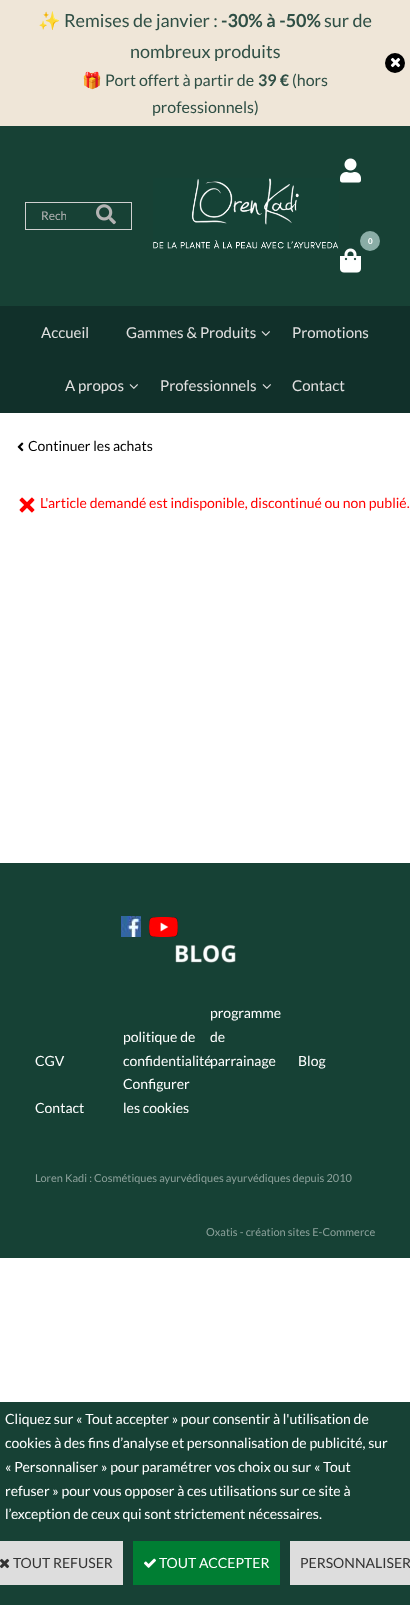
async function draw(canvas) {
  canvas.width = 410;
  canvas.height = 1605;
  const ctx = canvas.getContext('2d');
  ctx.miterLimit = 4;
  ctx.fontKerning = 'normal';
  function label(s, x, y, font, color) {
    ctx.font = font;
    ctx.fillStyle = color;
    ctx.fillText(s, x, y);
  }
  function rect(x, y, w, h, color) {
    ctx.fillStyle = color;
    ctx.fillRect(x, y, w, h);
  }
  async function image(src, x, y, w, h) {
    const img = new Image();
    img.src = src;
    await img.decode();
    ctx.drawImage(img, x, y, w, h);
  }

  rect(0, 0, 410, 1605, '#fff');
  rect(0, 0, 410, 126, '#efe6d8');
  label('✨', 38, 27, '18px Noto Color Emoji', '#2f4f45');
  label('Remises de janvier :', 64, 27, '18px Lato', '#2f4f45');
  label('-30% à -50%', 221, 27, 'bold 18px Lato', '#2f4f45');
  label('sur de', 324, 27, '18px Lato', '#2f4f45');
  label('nombreux produits', 130, 58, '18px Lato', '#2f4f45');
  label('🎁', 82, 86, '16px Noto Color Emoji', '#2f4f45');
  label('Port offert à partir de', 105, 86, '16px Lato', '#2f4f45');
  label('39 €', 258, 86, 'bold 16px Lato', '#2f4f45');
  label('(hors', 292, 86, '16px Lato', '#2f4f45');
  label('professionnels)', 152, 113, '16px Lato', '#2f4f45');
  ctx.fillStyle = '#000';
  ctx.beginPath();
  ctx.arc(395, 63, 10, 0, 2 * Math.PI);
  ctx.fill();
  await image('assets/img1.png', 390, 57, 11, 11);
  rect(0, 126, 410, 180, '#174135');
  rect(25, 202, 107, 1, '#d0d0d0');
  rect(25, 229, 56, 1, '#d0d0d0');
  rect(25, 202, 1, 28, '#d0d0d0');
  ctx.save();
  ctx.beginPath();
  ctx.rect(41, 208, 25, 15);
  ctx.clip();
  label('Rech', 41, 220, '12px Lato', '#b3b3b3');
  ctx.restore();
  rect(131, 202, 1, 28, '#d0d0d0');
  rect(81, 229, 51, 1, '#d0d0d0');
  await image('assets/img2.png', 96, 204, 20, 21);
  await image('assets/img3.png', 153, 178, 186, 71);
  await image('assets/img4.png', 340, 158, 21, 25);
  await image('assets/img5.png', 340, 248, 21, 25);
  ctx.fillStyle = '#8aada6';
  ctx.beginPath();
  ctx.arc(370, 241, 10, 0, 2 * Math.PI);
  ctx.fill();
  label('0', 368, 244, 'bold 8px Lato', '#fff');
  rect(0, 306, 410, 107, '#11302a');
  label('Accueil', 41, 338, '15px Lato', '#e2e1e1');
  label('Gammes & Produits', 126, 338, '15px Lato', '#e2e1e1');
  await image('assets/img6.png', 261, 331, 9, 5);
  label('Promotions', 292, 338, '15px Lato', '#e2e1e1');
  label('A propos', 65, 391, '15px Lato', '#e2e1e1');
  await image('assets/img6.png', 129, 384, 9, 5);
  label('Professionnels', 160, 391, '15px Lato', '#e2e1e1');
  await image('assets/img6.png', 262, 384, 9, 5);
  label('Contact', 292, 391, '15px Lato', '#e2e1e1');
  await image('assets/img7.png', 17, 442, 7, 10);
  label('Continuer les achats', 28, 451, '14px Lato', '#000');
  await image('assets/img8.png', 19, 497, 16, 16);
  label('L\'article demandé est indisponible, discontinué ou non publié.', 40, 508, '14px Lato', '#f00');
  rect(0, 863, 410, 395, '#164135');
  await image('assets/img9.png', 121, 916, 20, 21);
  await image('assets/img10.png', 149, 917, 29, 20);
  await image('assets/img11.png', 175, 944, 61, 20);
  label('CGV', 35, 1066, '14px Lato', '#fff');
  label('politique de', 123, 1042, '14px Lato', '#fff');
  label('confidentialité', 123, 1066, '14px Lato', '#fff');
  label('programme', 210, 1018, '14px Lato', '#fff');
  label('de', 210, 1042, '14px Lato', '#fff');
  label('parrainage', 210, 1066, '14px Lato', '#fff');
  label('Blog', 298, 1066, '14px Lato', '#fff');
  label('Contact', 35, 1113, '14px Lato', '#fff');
  label('Configurer', 123, 1089, '14px Lato', '#fff');
  label('les cookies', 123, 1113, '14px Lato', '#fff');
  label('Loren Kadi : Cosmétiques ayurvédiques ayurvédiques depuis 2010', 35, 1182, '11px Lato', '#8ba09a');
  label('Oxatis - création sites E-Commerce', 206, 1236, '11px Lato', '#8ba09a');
  rect(0, 1402, 410, 203, '#174135');
  label('Cliquez sur « Tout accepter » pour consentir à l\'utilisation de', 5, 1424, '14px Lato', '#fff');
  label('cookies à des fins d’analyse et personnalisation de publicité, sur', 5, 1448, '14px Lato', '#fff');
  label('« Personnaliser » pour paramétrer vos choix ou sur « Tout', 5, 1472, '14px Lato', '#fff');
  label('refuser » pour vous opposer à ces utilisations sur ce site à', 5, 1496, '14px Lato', '#fff');
  label('l’exception de ceux qui sont strictement nécessaires.', 5, 1519, '14px Lato', '#fff');
  rect(0, 1541, 123, 44, '#ddd');
  await image('assets/img12.png', 0, 1558, 10, 11);
  label('TOUT REFUSER', 13, 1568, '14px Lato', '#333');
  rect(133, 1541, 147, 44, '#007e33');
  await image('assets/img13.png', 144, 1558, 12, 10);
  label('TOUT ACCEPTER', 159, 1568, '14px Lato', '#fff');
  rect(290, 1541, 120, 44, '#ddd');
  label('PERSONNALISER', 300, 1568, '14px Lato', '#333');
}

draw(document.querySelector('canvas'));
